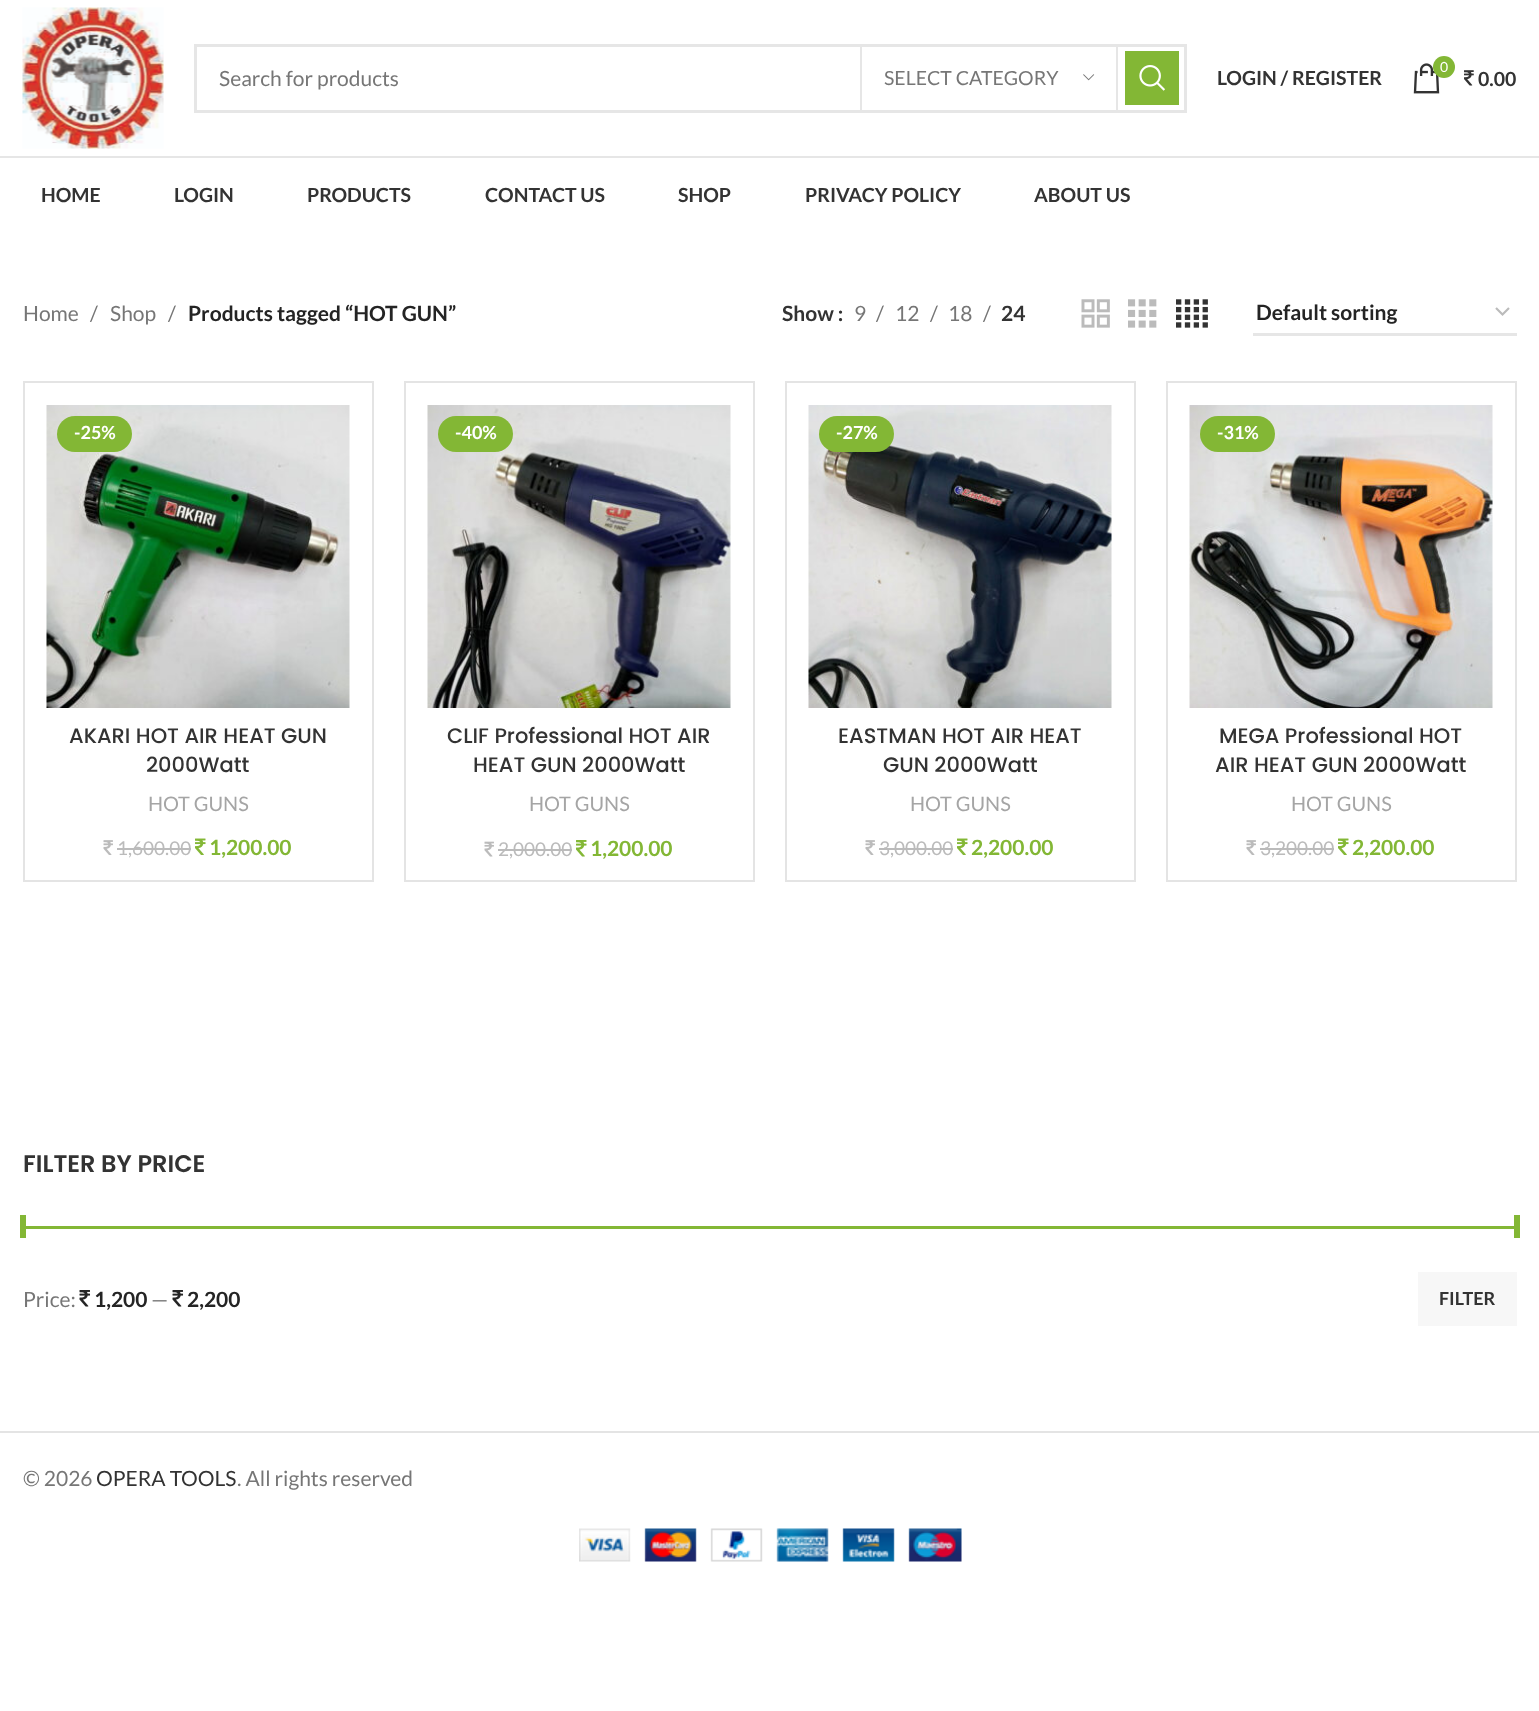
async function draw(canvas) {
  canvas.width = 1539;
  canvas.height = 1711;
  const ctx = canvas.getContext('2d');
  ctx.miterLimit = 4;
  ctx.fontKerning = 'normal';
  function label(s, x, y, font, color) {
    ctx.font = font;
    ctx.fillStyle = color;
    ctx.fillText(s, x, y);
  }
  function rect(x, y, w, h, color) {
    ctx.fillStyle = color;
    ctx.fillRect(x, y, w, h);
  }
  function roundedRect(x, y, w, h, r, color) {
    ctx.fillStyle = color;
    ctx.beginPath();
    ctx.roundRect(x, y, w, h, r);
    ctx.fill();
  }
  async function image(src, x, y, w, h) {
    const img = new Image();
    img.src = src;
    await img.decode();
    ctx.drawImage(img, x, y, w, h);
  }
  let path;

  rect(0, 0, 1539, 1711, '#fff');
  rect(0, 156, 1539, 2, '#e6e6e6');
  await image('assets/img1.png', 22, 7, 142, 142);
  ctx.strokeStyle = '#e6e6e6';
  ctx.lineWidth = 3;
  ctx.strokeRect(195.5, 45.5, 990, 66);
  label('Search for products', 219, 86, '21px Lato', '#767676');
  rect(1116, 47, 2, 63, '#e6e6e6');
  rect(860, 47, 2, 63, '#e6e6e6');
  label('SELECT CATEGORY', 884, 85, '19.5px Lato', '#767676');
  await image('assets/img2.png', 1083, 74, 12, 7);
  rect(1125, 51, 54, 54, '#83b735');
  await image('assets/img3.png', 1139, 65, 26, 26);
  label('LOGIN / REGISTER', 1217, 85, 'bold 19.5px Lato', '#333');
  await image('assets/img4.png', 1413, 63, 27, 31);
  ctx.fillStyle = '#83b735';
  ctx.beginPath();
  ctx.arc(1444, 67, 11, 0, 2 * Math.PI);
  ctx.fill();
  label('0', 1440, 72, '14px Lato', '#fff');
  await image('assets/img5.png', 1464, 70, 10, 16);
  label('0.00', 1478, 86, 'bold 19.5px Lato', '#333');
  label('HOME', 41, 202, 'bold 19.5px Lato', '#333');
  label('LOGIN', 174, 202, 'bold 19.5px Lato', '#333');
  label('PRODUCTS', 307, 202, 'bold 19.5px Lato', '#333');
  label('CONTACT US', 485, 202, 'bold 19.5px Lato', '#333');
  label('SHOP', 678, 202, 'bold 19.5px Lato', '#333');
  label('PRIVACY POLICY', 805, 202, 'bold 19.5px Lato', '#333');
  label('ABOUT US', 1034, 202, 'bold 19.5px Lato', '#333');
  label('Home', 23, 321, '21px Lato', '#767676');
  label('/', 90, 321, '21px Lato', '#767676');
  label('Shop', 110, 321, '21px Lato', '#767676');
  label('/', 168, 321, '21px Lato', '#767676');
  label('Products tagged “HOT GUN”', 188, 321, 'bold 21px Lato', '#242424');
  label('Show :', 782, 321, 'bold 21px Lato', '#333');
  label('9', 854, 321, '21px Lato', '#767676');
  label('/', 876, 321, '21px Lato', '#767676');
  label('12', 895, 321, '21px Lato', '#767676');
  label('/', 930, 321, '21px Lato', '#767676');
  label('18', 948, 321, '21px Lato', '#767676');
  label('/', 983, 321, '21px Lato', '#767676');
  label('24', 1001, 321, 'bold 21px Lato', '#333');
  await image('assets/img6.png', 1081, 299, 29, 29);
  await image('assets/img7.png', 1128, 299, 29, 29);
  await image('assets/img8.png', 1176, 299, 32, 29);
  path = new Path2D('M1496 308L1502.5 314.5L1509 308');
  ctx.strokeStyle = '#bbb';
  ctx.lineWidth = 2.2;
  ctx.stroke(path);
  rect(1253, 333, 264, 3, '#e6e6e6');
  label('Default sorting', 1256, 320, 'bold 21px Lato', '#242424');
  ctx.strokeStyle = '#e4e4e4';
  ctx.lineWidth = 2;
  ctx.strokeRect(24, 382, 349, 499);
  await image('assets/img9.png', 46, 405, 304, 303);
  roundedRect(57, 416, 75, 36, 18, '#83b735');
  label('-25%', 74, 439, 'bold 18px Lato', '#fff');
  label('AKARI HOT AIR HEAT GUN', 69, 743, '500 21px Poppins', '#333');
  label('2000Watt', 146, 772, '500 21px Poppins', '#333');
  label('HOT GUNS', 148, 811, '20px Lato', '#a5a5a5');
  await image('assets/img10.png', 103, 840, 10, 15);
  label('1,600.00', 117, 855, '19px Lato', '#bbb');
  rect(117, 848, 74, 2, '#bbb');
  await image('assets/img11.png', 195, 838, 11, 17);
  label('1,200.00', 209, 855, 'bold 21px Lato', '#83b735');
  ctx.strokeRect(405, 382, 349, 499);
  await image('assets/img12.png', 427, 405, 304, 303);
  roundedRect(438, 416, 75, 36, 18, '#83b735');
  label('-40%', 455, 439, 'bold 18px Lato', '#fff');
  label('CLIF Professional HOT AIR', 447, 743, '500 21px Poppins', '#333');
  label('HEAT GUN 2000Watt', 473, 772, '500 21px Poppins', '#333');
  label('HOT GUNS', 529, 811, '20px Lato', '#a5a5a5');
  await image('assets/img13.png', 484, 841, 10, 16);
  label('2,000.00', 498, 856, '19px Lato', '#bbb');
  rect(498, 849, 74, 2, '#bbb');
  await image('assets/img14.png', 576, 840, 11, 17);
  label('1,200.00', 590, 856, 'bold 21px Lato', '#83b735');
  ctx.strokeRect(786, 382, 349, 499);
  await image('assets/img15.png', 808, 405, 304, 303);
  roundedRect(819, 416, 75, 36, 18, '#83b735');
  label('-27%', 836, 439, 'bold 18px Lato', '#fff');
  label('EASTMAN HOT AIR HEAT', 838, 743, '500 21px Poppins', '#333');
  label('GUN 2000Watt', 883, 772, '500 21px Poppins', '#333');
  label('HOT GUNS', 910, 811, '20px Lato', '#a5a5a5');
  await image('assets/img10.png', 865, 840, 10, 15);
  label('3,000.00', 879, 855, '19px Lato', '#bbb');
  rect(879, 848, 74, 2, '#bbb');
  await image('assets/img11.png', 957, 838, 11, 17);
  label('2,200.00', 971, 855, 'bold 21px Lato', '#83b735');
  ctx.strokeRect(1167, 382, 349, 499);
  await image('assets/img16.png', 1189, 405, 304, 303);
  roundedRect(1200, 416, 75, 36, 18, '#83b735');
  label('-31%', 1217, 439, 'bold 18px Lato', '#fff');
  label('MEGA Professional HOT', 1219, 743, '500 21px Poppins', '#333');
  label('AIR HEAT GUN 2000Watt', 1215, 772, '500 21px Poppins', '#333');
  label('HOT GUNS', 1291, 811, '20px Lato', '#a5a5a5');
  await image('assets/img10.png', 1246, 840, 10, 15);
  label('3,200.00', 1260, 855, '19px Lato', '#bbb');
  rect(1260, 848, 74, 2, '#bbb');
  await image('assets/img11.png', 1338, 838, 11, 17);
  label('2,200.00', 1352, 855, 'bold 21px Lato', '#83b735');
  label('FILTER BY PRICE', 23, 1172, '600 24px Poppins', '#333');
  rect(23, 1226, 1494, 3, '#83b735');
  rect(20, 1215, 6, 23, '#83b735');
  rect(1514, 1215, 6, 23, '#83b735');
  label('Price:', 23, 1307, '21px Lato', '#767676');
  await image('assets/img17.png', 79, 1290, 12, 17);
  label('1,200', 94, 1307, 'bold 21px Lato', '#242424');
  label('—', 151, 1307, '21px Lato', '#767676');
  await image('assets/img17.png', 172, 1290, 12, 17);
  label('2,200', 187, 1307, 'bold 21px Lato', '#242424');
  rect(1418, 1272, 99, 54, '#f7f7f7');
  label('FILTER', 1439, 1305, 'bold 18px Lato', '#333');
  rect(0, 1431, 1539, 2, '#e4e4e4');
  label('© 2026', 23, 1486, '21px Lato', '#767676');
  label('OPERA TOOLS', 96, 1486, '21px Lato', '#333');
  label('. All rights reserved', 237, 1486, '21px Lato', '#767676');
  await image('assets/img18.png', 579, 1528, 383, 34);
}

draw(document.querySelector('canvas'));
